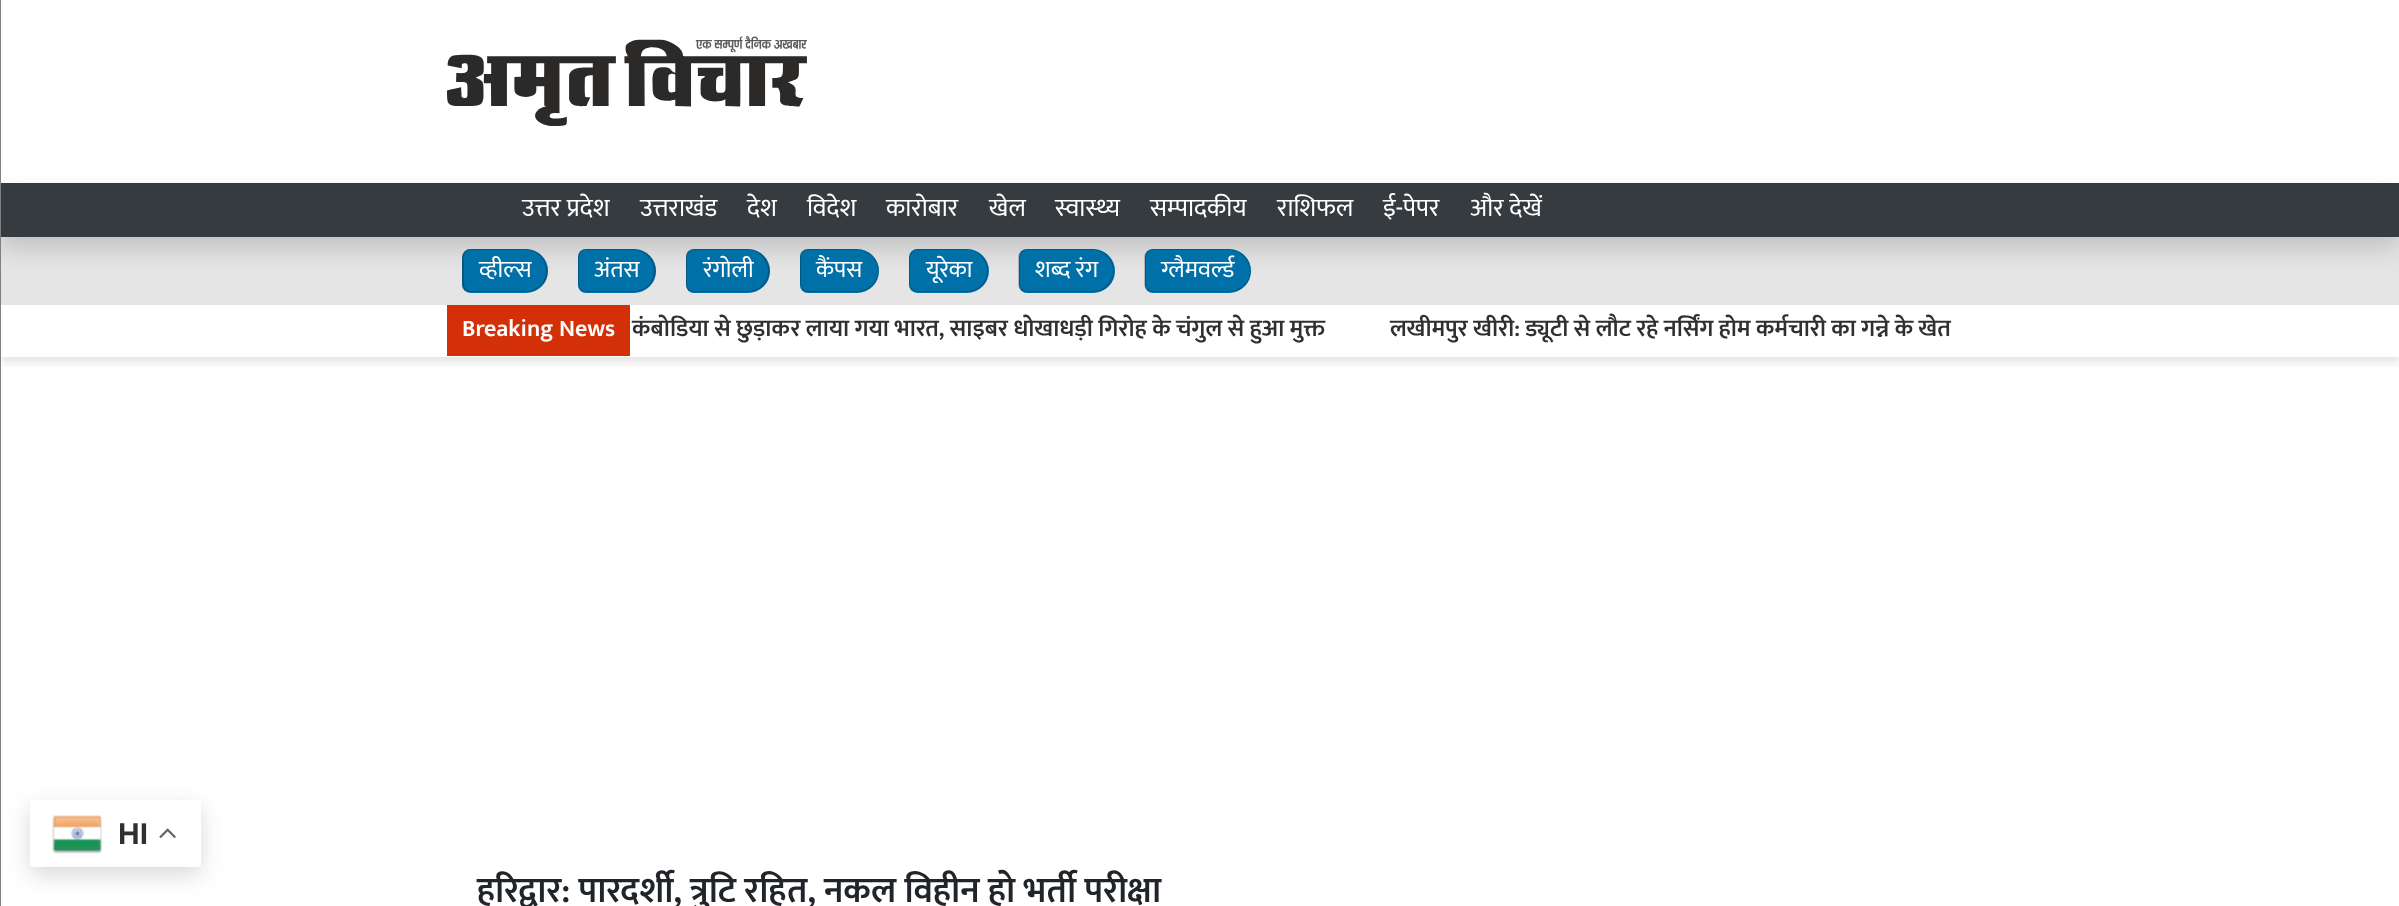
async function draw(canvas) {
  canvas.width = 2399;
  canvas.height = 906;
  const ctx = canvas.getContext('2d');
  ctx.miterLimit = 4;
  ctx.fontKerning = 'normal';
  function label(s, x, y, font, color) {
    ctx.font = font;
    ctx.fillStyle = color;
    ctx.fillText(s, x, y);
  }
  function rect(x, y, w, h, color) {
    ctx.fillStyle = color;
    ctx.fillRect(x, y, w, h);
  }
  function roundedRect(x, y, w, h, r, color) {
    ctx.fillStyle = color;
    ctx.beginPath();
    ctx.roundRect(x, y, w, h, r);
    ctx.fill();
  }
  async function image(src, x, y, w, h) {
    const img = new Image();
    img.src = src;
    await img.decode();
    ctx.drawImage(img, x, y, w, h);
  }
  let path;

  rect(0, 0, 2399, 906, '#fff');
  ctx.fillStyle = '#00000026';
  ctx.filter = 'blur(12px)';
  ctx.beginPath();
  ctx.rect(0, 195, 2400, 54);
  ctx.fill();
  ctx.filter = 'none';
  rect(1, 237, 2398, 68, '#0000001a');
  ctx.save();
  ctx.beginPath();
  ctx.rect(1, 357, 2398, 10);
  ctx.clip();
  ctx.filter = 'blur(5px)';
  ctx.beginPath();
  ctx.rect(0, 311, 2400, 52);
  ctx.fill();
  ctx.filter = 'none';
  ctx.restore();
  ctx.fillStyle = '#00000026';
  ctx.filter = 'blur(11px)';
  ctx.beginPath();
  ctx.roundRect(30, 807, 171, 68, 3);
  ctx.fill();
  ctx.filter = 'none';
  rect(0, 0, 1, 906, '#808080');
  await image('assets/img1.png', 447, 36, 360, 90);
  rect(1, 183, 2398, 54, '#363b3f');
  label('उत्तर प्रदेश', 522, 216, '25.5px Mukta', '#fff');
  label('उत्तराखंड', 640, 216, '25.5px Mukta', '#fff');
  label('देश', 747, 216, '25.5px Mukta', '#fff');
  label('विदेश', 807, 216, '25.5px Mukta', '#fff');
  label('कारोबार', 886, 216, '25.5px Mukta', '#fff');
  label('खेल', 989, 216, '25.5px Mukta', '#fff');
  label('स्वास्थ्य', 1055, 216, '25.5px Mukta', '#fff');
  label('सम्पादकीय', 1150, 216, '25.5px Mukta', '#fff');
  label('राशिफल', 1277, 216, '25.5px Mukta', '#fff');
  label('ई-पेपर', 1383, 216, '25.5px Mukta', '#fff');
  label('और देखें', 1470, 216, '25.5px Mukta', '#fff');
  ctx.fillStyle = '#0070a8';
  ctx.beginPath();
  ctx.roundRect(462, 249, 17, 44, [8.5, 0, 0, 8.5]);
  ctx.fill();
  ctx.fillStyle = '#00000033';
  path = new Path2D('M470 249H478V292H470C466 292 462 289 462 284V257C462 253 466 249 470 249ZM470 250H478V291H470C467 291 464 288 464 284V257C464 254 467 250 470 250Z');
  ctx.fill(path, 'evenodd');
  ctx.fillStyle = '#0070a8';
  ctx.beginPath();
  ctx.roundRect(479, 249, 69, 44, [0, 22, 22, 0]);
  ctx.fill();
  ctx.fillStyle = '#00000033';
  path = new Path2D('M478 249H526C538 249 548 259 548 271C548 283 538 292 526 292H478ZM478 250H526C537 250 546 260 546 271C546 282 537 291 526 291H478Z');
  ctx.fill(path, 'evenodd');
  label('व्हील्स', 479, 277, '24px Mukta', '#fff');
  ctx.fillStyle = '#0070a8';
  ctx.beginPath();
  ctx.roundRect(578, 249, 16, 44, [8, 0, 0, 8]);
  ctx.fill();
  ctx.fillStyle = '#00000033';
  path = new Path2D('M586 249H594V292H586C581 292 578 289 578 284V257C578 253 581 249 586 249ZM586 250H594V291H586C582 291 579 288 579 284V257C579 254 582 250 586 250Z');
  ctx.fill(path, 'evenodd');
  ctx.fillStyle = '#0070a8';
  ctx.beginPath();
  ctx.roundRect(594, 249, 62, 44, [0, 22, 22, 0]);
  ctx.fill();
  ctx.fillStyle = '#00000033';
  path = new Path2D('M594 249H634C646 249 656 259 656 271C656 283 646 292 634 292H594ZM594 250H634C645 250 654 260 654 271C654 282 645 291 634 291H594Z');
  ctx.fill(path, 'evenodd');
  label('अंतस', 594, 277, '24px Mukta', '#fff');
  ctx.fillStyle = '#0070a8';
  ctx.beginPath();
  ctx.roundRect(686, 249, 16, 44, [8, 0, 0, 8]);
  ctx.fill();
  ctx.fillStyle = '#00000033';
  path = new Path2D('M694 249H702V292H694C689 292 686 289 686 284V257C686 253 689 249 694 249ZM694 250H702V291H694C690 291 687 288 687 284V257C687 254 690 250 694 250Z');
  ctx.fill(path, 'evenodd');
  ctx.fillStyle = '#0070a8';
  ctx.beginPath();
  ctx.roundRect(702, 249, 68, 44, [0, 22, 22, 0]);
  ctx.fill();
  ctx.fillStyle = '#00000033';
  path = new Path2D('M702 249H748C760 249 770 259 770 271C770 283 760 292 748 292H702ZM702 250H748C759 250 768 260 768 271C768 282 759 291 748 291H702Z');
  ctx.fill(path, 'evenodd');
  label('रंगोली', 703, 277, '24px Mukta', '#fff');
  ctx.fillStyle = '#0070a8';
  ctx.beginPath();
  ctx.roundRect(800, 249, 16, 44, [8, 0, 0, 8]);
  ctx.fill();
  ctx.fillStyle = '#00000033';
  path = new Path2D('M808 249H816V292H808C803 292 800 289 800 284V257C800 253 803 249 808 249ZM808 250H816V291H808C804 291 801 288 801 284V257C801 254 804 250 808 250Z');
  ctx.fill(path, 'evenodd');
  ctx.fillStyle = '#0070a8';
  ctx.beginPath();
  ctx.roundRect(816, 249, 63, 44, [0, 22, 22, 0]);
  ctx.fill();
  ctx.fillStyle = '#00000033';
  path = new Path2D('M816 249H857C869 249 879 259 879 271C879 283 869 292 857 292H816ZM816 250H857C868 250 878 260 878 271C878 282 868 291 857 291H816Z');
  ctx.fill(path, 'evenodd');
  label('कैंपस', 816, 277, '24px Mukta', '#fff');
  ctx.fillStyle = '#0070a8';
  ctx.beginPath();
  ctx.roundRect(909, 249, 17, 44, [8.5, 0, 0, 8.5]);
  ctx.fill();
  ctx.fillStyle = '#00000033';
  path = new Path2D('M917 249H926V292H917C913 292 909 289 909 284V257C909 253 913 249 917 249ZM917 250H926V291H917C914 291 910 288 910 284V257C910 254 914 250 917 250Z');
  ctx.fill(path, 'evenodd');
  ctx.fillStyle = '#0070a8';
  ctx.beginPath();
  ctx.roundRect(926, 249, 63, 44, [0, 22, 22, 0]);
  ctx.fill();
  ctx.fillStyle = '#00000033';
  path = new Path2D('M926 249H967C979 249 988 259 988 271C988 283 979 292 967 292H926ZM926 250H967C978 250 987 260 987 271C987 282 978 291 967 291H926Z');
  ctx.fill(path, 'evenodd');
  label('यूरेका', 926, 277, '24px Mukta', '#fff');
  ctx.fillStyle = '#0070a8';
  ctx.beginPath();
  ctx.roundRect(1035, 249, 80, 44, [0, 22, 22, 0]);
  ctx.fill();
  ctx.fillStyle = '#00000033';
  path = new Path2D('M1035 249H1093C1105 249 1114 259 1114 271C1114 283 1105 292 1093 292H1035ZM1035 250H1093C1104 250 1113 260 1113 271C1113 282 1104 291 1093 291H1035Z');
  ctx.fill(path, 'evenodd');
  label('शब्द रंग', 1035, 277, '24px Mukta', '#fff');
  ctx.fillStyle = '#0070a8';
  ctx.beginPath();
  ctx.roundRect(1019, 249, 16, 44, [8, 0, 0, 8]);
  ctx.fill();
  ctx.fillStyle = '#00000033';
  path = new Path2D('M1027 249H1035V292H1027C1022 292 1018 289 1018 284V257C1018 253 1022 249 1027 249ZM1027 250H1035V291H1027C1023 291 1020 288 1020 284V257C1020 254 1023 250 1027 250Z');
  ctx.fill(path, 'evenodd');
  ctx.fillStyle = '#0070a8';
  ctx.beginPath();
  ctx.roundRect(1145, 249, 16, 44, [8, 0, 0, 8]);
  ctx.fill();
  ctx.fillStyle = '#00000033';
  path = new Path2D('M1153 249H1161V292H1153C1148 292 1144 289 1144 284V257C1144 253 1148 249 1153 249ZM1153 250H1161V291H1153C1149 291 1146 288 1146 284V257C1146 254 1149 250 1153 250Z');
  ctx.fill(path, 'evenodd');
  ctx.fillStyle = '#0070a8';
  ctx.beginPath();
  ctx.roundRect(1161, 249, 90, 44, [0, 22, 22, 0]);
  ctx.fill();
  ctx.fillStyle = '#00000033';
  path = new Path2D('M1161 249H1229C1241 249 1251 259 1251 271C1251 283 1241 292 1229 292H1161ZM1161 250H1229C1240 250 1250 260 1250 271C1250 282 1240 291 1229 291H1161Z');
  ctx.fill(path, 'evenodd');
  label('ग्लैमवर्ल्ड', 1161, 277, '24px Mukta', '#fff');
  label('कंबोडिया से छुड़ाकर लाया गया भारत, साइबर धोखाधड़ी गिरोह के चंगुल से हुआ मुक्त', 632, 336, '600 24px Mukta', '#303030');
  rect(447, 305, 183, 51, '#d43007');
  label('Breaking News', 462, 336, '600 24px Mukta', '#fff');
  label('लखीमपुर खीरी: ड्यूटी से लौट रहे नर्सिंग होम कर्मचारी का गन्ने के खेत', 1390, 336, '600 24px Mukta', '#303030');
  roundedRect(30, 800, 171, 67, 3, '#fff');
  await image('assets/img2.png', 52, 815, 50, 39);
  label('HI', 118, 844, 'bold 30px Liberation Sans', '#303030');
  await image('assets/img3.png', 159, 828, 17, 10);
  label('हरिद्वार: पारदर्शी, त्रुटि रहित, नकल विहीन हो भर्ती परीक्षा', 477, 902, '600 36px Mukta', '#212529');
}

draw(document.querySelector('canvas'));
